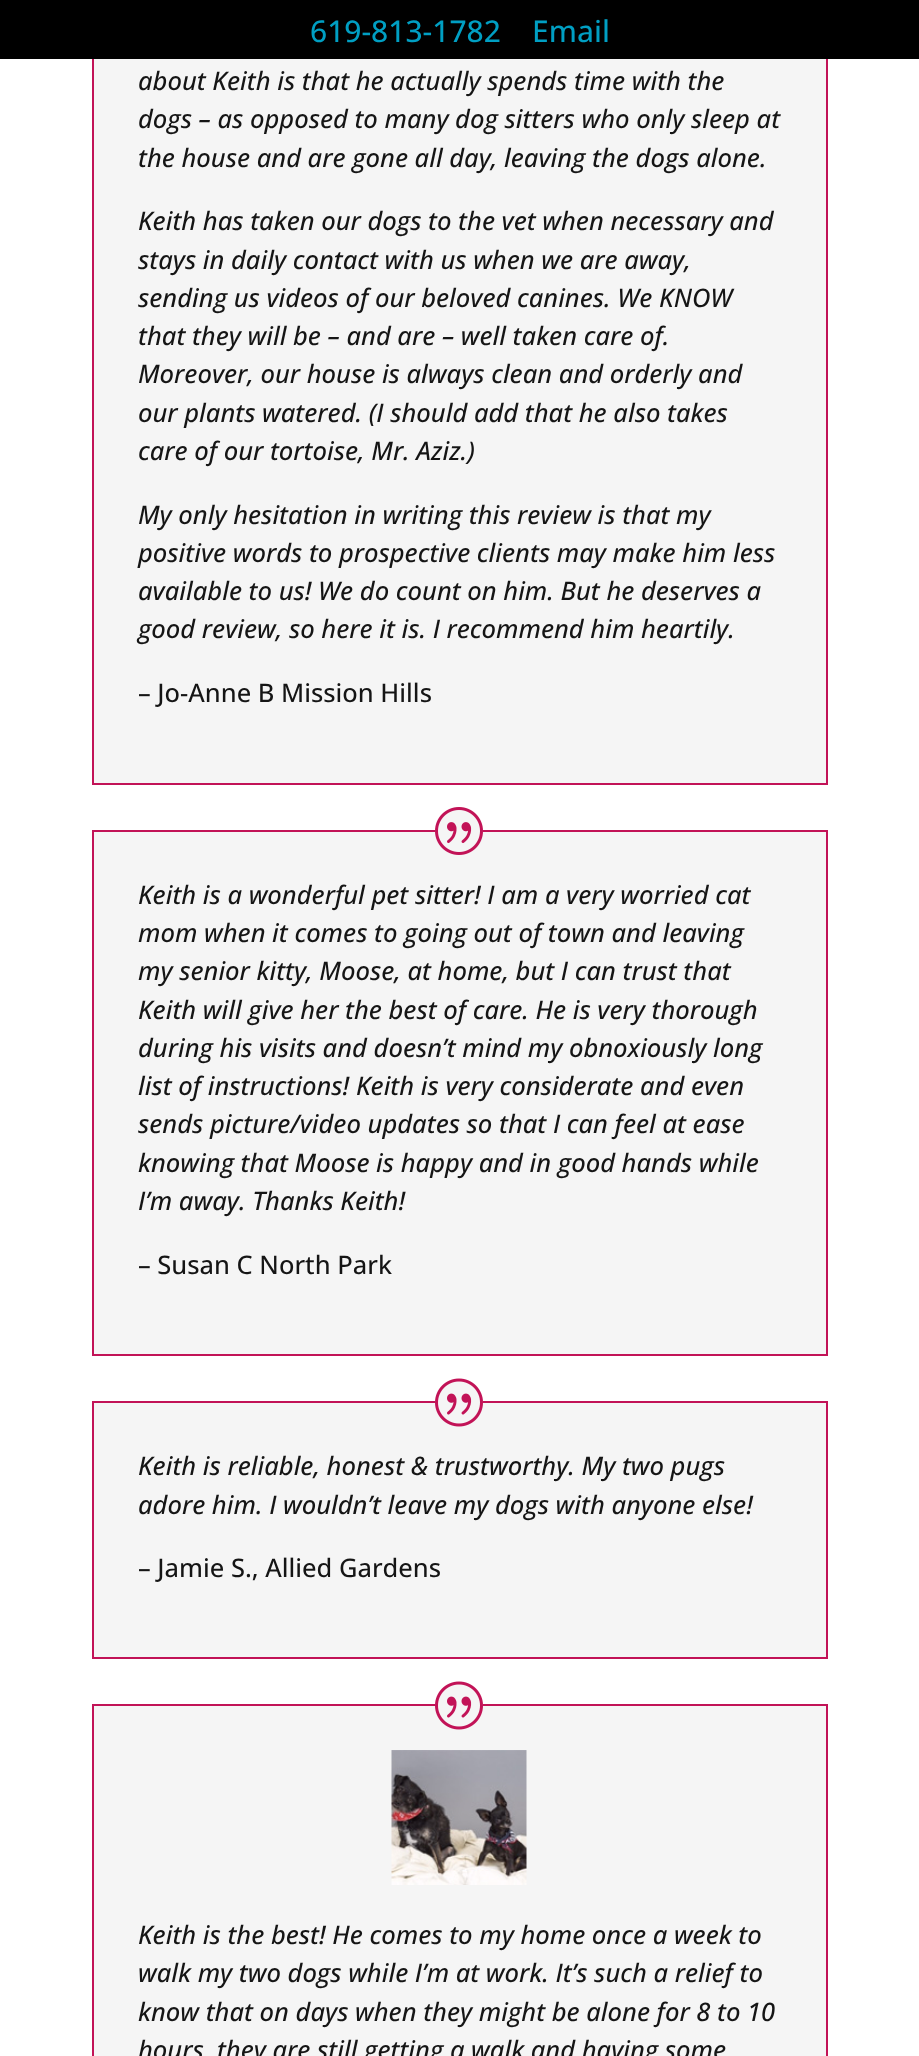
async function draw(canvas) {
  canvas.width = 919;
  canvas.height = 2056;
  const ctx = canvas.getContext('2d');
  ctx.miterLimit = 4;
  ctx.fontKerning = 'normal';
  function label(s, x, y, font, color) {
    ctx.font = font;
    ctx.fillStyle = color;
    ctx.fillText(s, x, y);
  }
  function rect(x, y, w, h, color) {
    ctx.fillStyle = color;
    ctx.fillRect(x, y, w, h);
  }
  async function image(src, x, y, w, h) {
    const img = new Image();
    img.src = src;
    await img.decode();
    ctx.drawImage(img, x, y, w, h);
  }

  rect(0, 0, 919, 2056, '#fff');
  rect(94, 59, 732, 724, '#f5f5f5');
  ctx.strokeStyle = '#c21357';
  ctx.lineWidth = 2;
  ctx.strokeRect(93, -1, 734, 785);
  rect(0, 0, 919, 59, '#000');
  label('619-813-1782', 310, 42, '500 30px Open Sans', '#009fc3');
  label('Email', 532, 42, '500 30px Open Sans', '#009fc3');
  label('about Keith is that he actually spends time with the', 138, 90, 'italic 500 25.5px Open Sans', '#151515');
  label('dogs – as opposed to many dog sitters who only sleep at', 138, 128, 'italic 500 25.5px Open Sans', '#151515');
  label('the house and are gone all day, leaving the dogs alone.', 138, 167, 'italic 500 25.5px Open Sans', '#151515');
  label('Keith has taken our dogs to the vet when necessary and', 138, 230, 'italic 500 25.5px Open Sans', '#151515');
  label('stays in daily contact with us when we are away,', 138, 269, 'italic 500 25.5px Open Sans', '#151515');
  label('sending us videos of our beloved canines. We KNOW', 138, 307, 'italic 500 25.5px Open Sans', '#151515');
  label('that they will be – and are – well taken care of.', 138, 345, 'italic 500 25.5px Open Sans', '#151515');
  label('Moreover, our house is always clean and orderly and', 138, 383, 'italic 500 25.5px Open Sans', '#151515');
  label('our plants watered. (I should add that he also takes', 138, 422, 'italic 500 25.5px Open Sans', '#151515');
  label('care of our tortoise, Mr. Aziz.)', 138, 460, 'italic 500 25.5px Open Sans', '#151515');
  label('My only hesitation in writing this review is that my', 138, 524, 'italic 500 25.5px Open Sans', '#151515');
  label('positive words to prospective clients may make him less', 138, 562, 'italic 500 25.5px Open Sans', '#151515');
  label('available to us! We do count on him. But he deserves a', 138, 600, 'italic 500 25.5px Open Sans', '#151515');
  label('good review, so here it is. I recommend him heartily.', 138, 638, 'italic 500 25.5px Open Sans', '#151515');
  label('– Jo-Anne B Mission Hills', 138, 702, '500 25.5px Open Sans', '#151515');
  ctx.fillStyle = '#f5f5f5';
  ctx.beginPath();
  ctx.rect(93, 831, 734, 524);
  ctx.fill();
  ctx.stroke();
  ctx.beginPath();
  ctx.arc(459, 831, 24, 0, 2 * Math.PI);
  ctx.fill();
  await image('assets/img1.png', 435, 807, 48, 48);
  label('Keith is a wonderful pet sitter! I am a very worried cat', 138, 904, 'italic 500 25.5px Open Sans', '#151515');
  label('mom when it comes to going out of town and leaving', 138, 942, 'italic 500 25.5px Open Sans', '#151515');
  label('my senior kitty, Moose, at home, but I can trust that', 138, 980, 'italic 500 25.5px Open Sans', '#151515');
  label('Keith will give her the best of care. He is very thorough', 138, 1019, 'italic 500 25.5px Open Sans', '#151515');
  label('during his visits and doesn’t mind my obnoxiously long', 138, 1057, 'italic 500 25.5px Open Sans', '#151515');
  label('list of instructions! Keith is very considerate and even', 138, 1095, 'italic 500 25.5px Open Sans', '#151515');
  label('sends picture/video updates so that I can feel at ease', 138, 1133, 'italic 500 25.5px Open Sans', '#151515');
  label('knowing that Moose is happy and in good hands while', 138, 1172, 'italic 500 25.5px Open Sans', '#151515');
  label('I’m away. Thanks Keith!', 138, 1210, 'italic 500 25.5px Open Sans', '#151515');
  label('– Susan C North Park', 138, 1274, '500 25.5px Open Sans', '#151515');
  ctx.fillStyle = '#f5f5f5';
  ctx.beginPath();
  ctx.rect(93, 1402, 734, 256);
  ctx.fill();
  ctx.stroke();
  ctx.beginPath();
  ctx.arc(459, 1403, 24, 0, 2 * Math.PI);
  ctx.fill();
  await image('assets/img2.png', 435, 1378, 48, 49);
  label('Keith is reliable, honest & trustworthy. My two pugs', 138, 1475, 'italic 500 25.5px Open Sans', '#151515');
  label('adore him. I wouldn’t leave my dogs with anyone else!', 138, 1514, 'italic 500 25.5px Open Sans', '#151515');
  label('– Jamie S., Allied Gardens', 138, 1577, '500 25.5px Open Sans', '#151515');
  ctx.fillStyle = '#f5f5f5';
  ctx.beginPath();
  ctx.rect(93, 1705, 734, 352);
  ctx.fill();
  ctx.stroke();
  ctx.beginPath();
  ctx.arc(459, 1706, 24, 0, 2 * Math.PI);
  ctx.fill();
  await image('assets/img2.png', 435, 1681, 48, 49);
  await image('assets/img3.png', 391, 1750, 136, 135);
  label('Keith is the best! He comes to my home once a week to', 138, 1944, 'italic 500 25.5px Open Sans', '#151515');
  label('walk my two dogs while I’m at work. It’s such a relief to', 138, 1982, 'italic 500 25.5px Open Sans', '#151515');
  label('know that on days when they might be alone for 8 to 10', 138, 2021, 'italic 500 25.5px Open Sans', '#151515');
  label('hours, they are still getting a walk and having some', 138, 2059, 'italic 500 25.5px Open Sans', '#151515');
}

draw(document.querySelector('canvas'));
